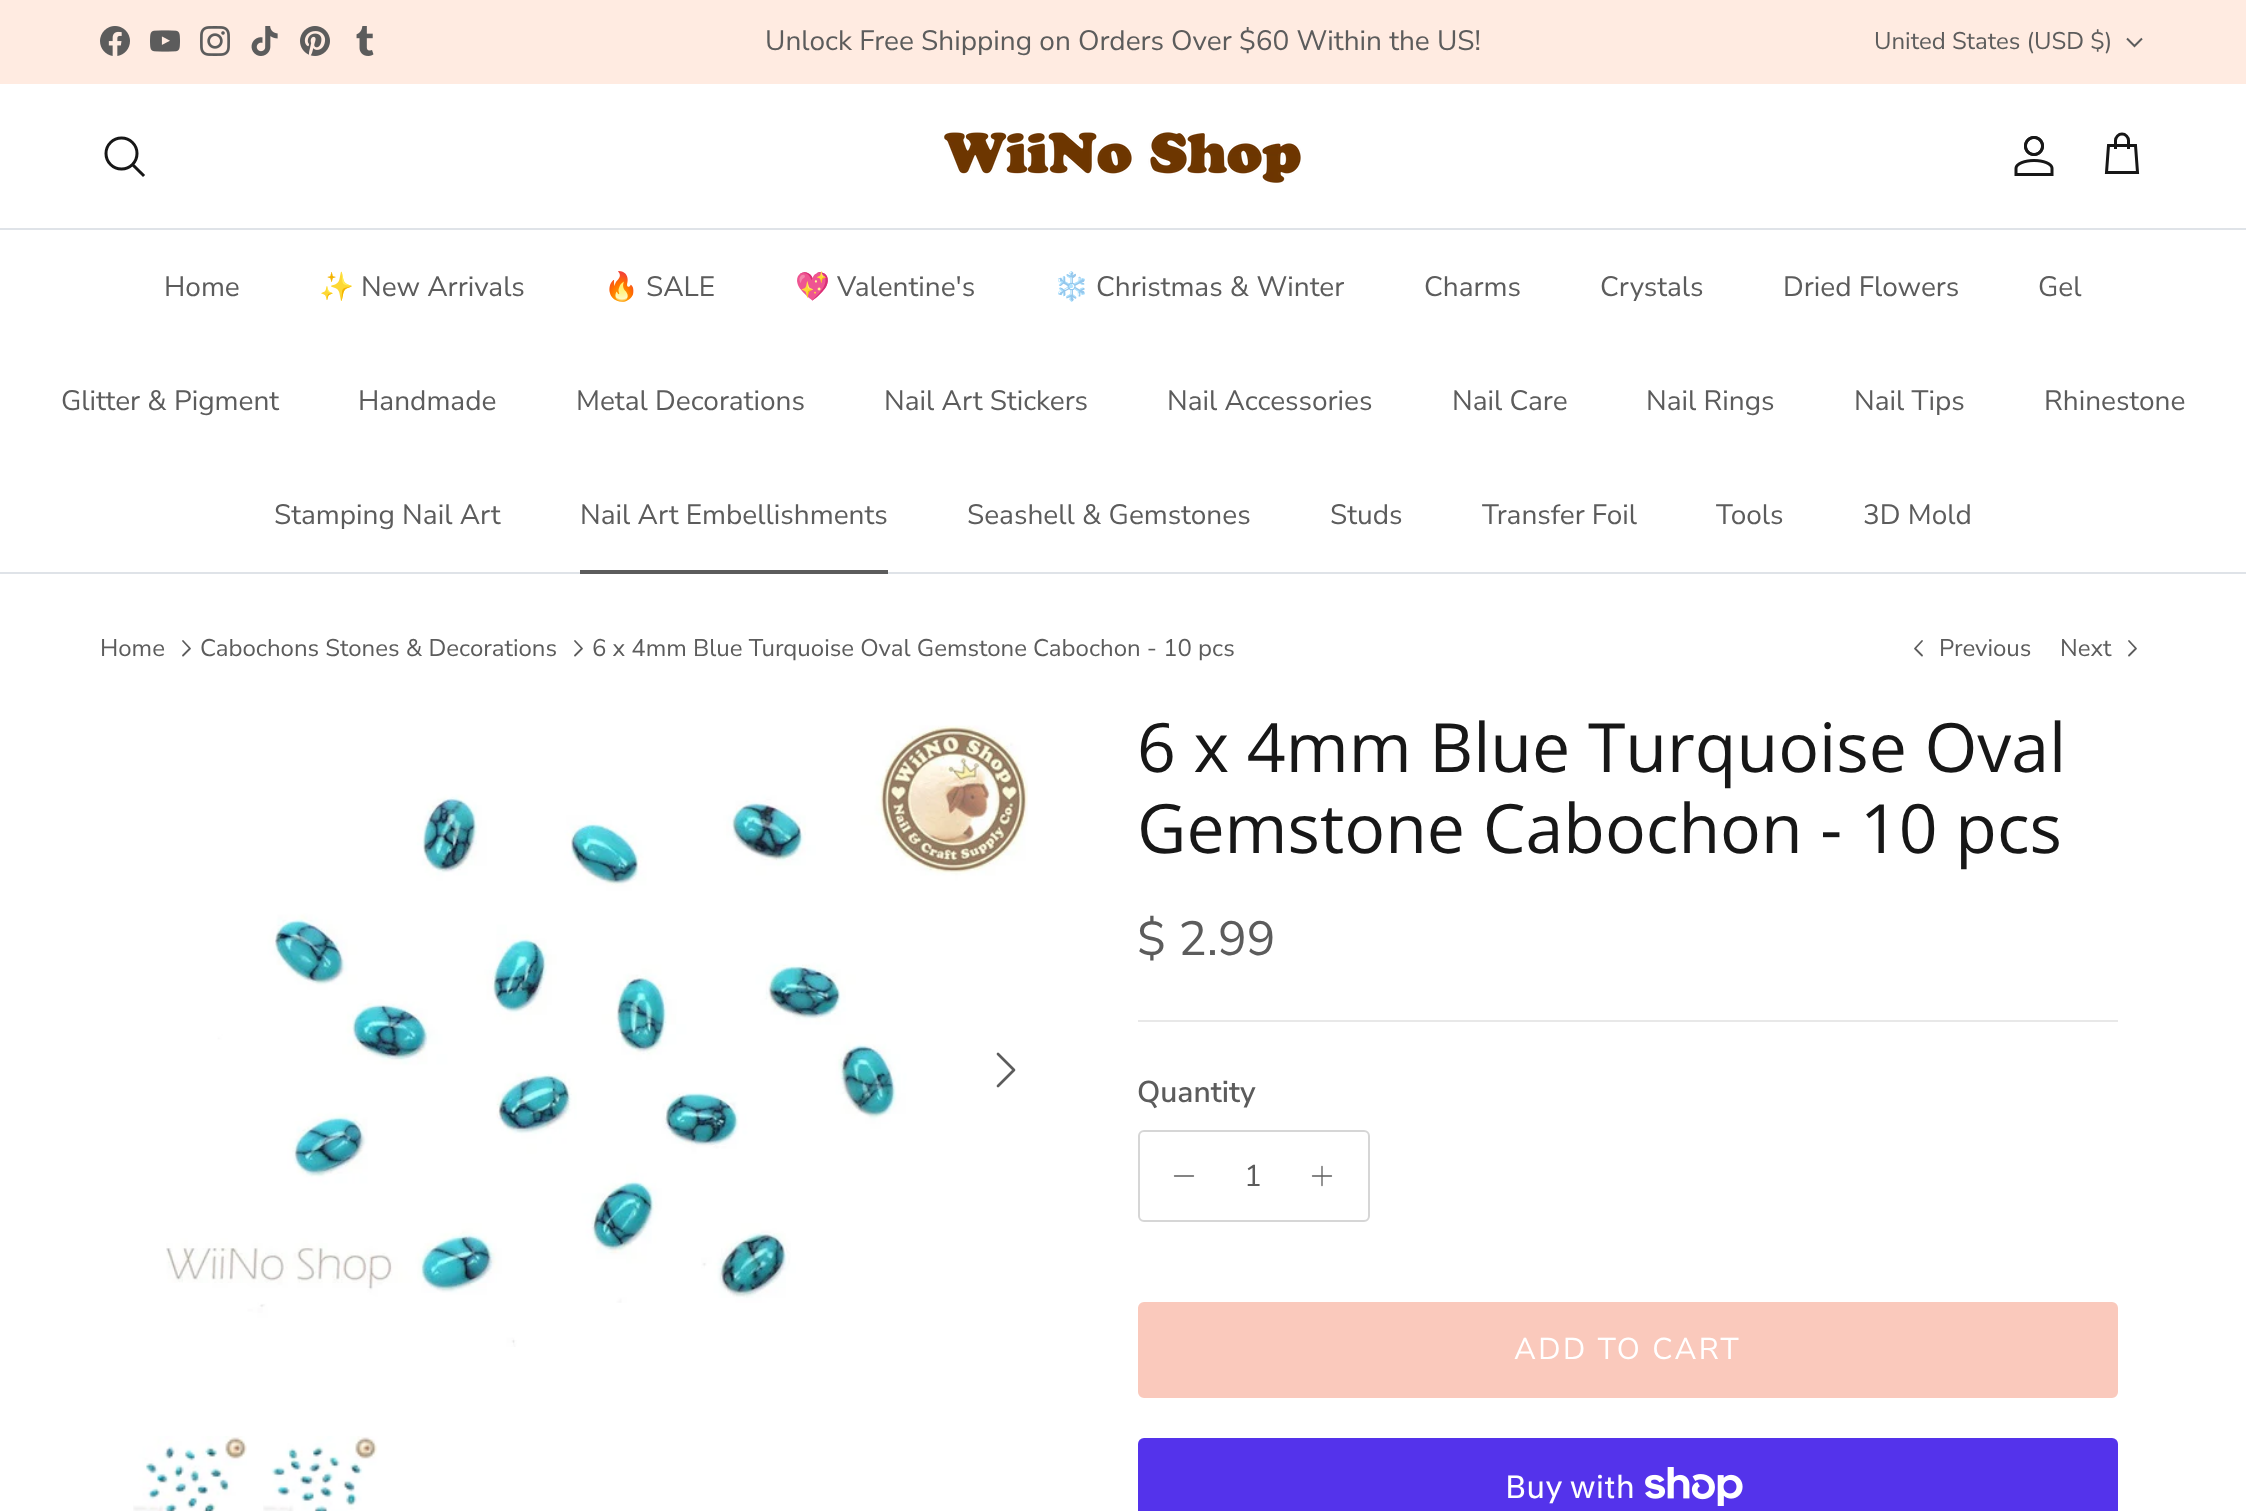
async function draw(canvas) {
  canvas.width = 2246;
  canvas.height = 1511;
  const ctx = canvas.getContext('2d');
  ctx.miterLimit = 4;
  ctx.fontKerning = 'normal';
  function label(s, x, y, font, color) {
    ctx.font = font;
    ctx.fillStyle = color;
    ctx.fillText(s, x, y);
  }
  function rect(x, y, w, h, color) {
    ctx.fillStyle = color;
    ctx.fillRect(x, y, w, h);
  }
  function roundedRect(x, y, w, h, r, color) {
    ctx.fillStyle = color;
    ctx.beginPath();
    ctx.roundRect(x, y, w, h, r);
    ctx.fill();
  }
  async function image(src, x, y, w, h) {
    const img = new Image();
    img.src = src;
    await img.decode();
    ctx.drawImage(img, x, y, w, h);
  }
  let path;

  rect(0, 0, 2246, 1511, '#fff');
  rect(0, 0, 2246, 84, '#ffebe1');
  await image('assets/img1.png', 100, 26, 30, 30);
  await image('assets/img2.png', 150, 30, 30, 22);
  await image('assets/img3.png', 200, 26, 30, 30);
  await image('assets/img4.png', 251, 26, 27, 30);
  await image('assets/img5.png', 300, 26, 30, 30);
  await image('assets/img6.png', 356, 26, 18, 30);
  label('Unlock Free Shipping on Orders Over $60 Within the US!', 765, 50, '28px Nunito Sans', '#5c5c5c');
  label('United States (USD $)', 1874, 49, '24px Nunito Sans', '#5c5c5c');
  path = new Path2D('M2142 38.5L2134.5 46L2127 38.5');
  ctx.strokeStyle = '#5c5c5c';
  ctx.lineWidth = 2;
  ctx.stroke(path);
  rect(0, 228, 2246, 2, '#dfe3e8');
  ctx.beginPath();
  ctx.arc(121.5, 153.5, 15.5, 0, 2 * Math.PI);
  ctx.strokeStyle = '#171717';
  ctx.lineWidth = 3;
  ctx.stroke();
  path = new Path2D('M134 166L143 175');
  ctx.lineCap = 'square';
  ctx.stroke(path);
  await image('assets/img7.png', 944, 132, 357, 51);
  await image('assets/img8.png', 2014, 136, 40, 40);
  path = new Path2D('M2128.5 149V140.5C2128.5 137 2125.5 134 2122 134C2118.5 134 2115.5 137 2115.5 140.5V149M2108.5 145.5H2135.5L2137.5 172.5H2106.5Z');
  ctx.lineCap = 'butt';
  ctx.stroke(path);
  rect(0, 572, 2246, 2, '#dfe3e8');
  label('Home', 164, 296, '28px Nunito Sans', '#5c5c5c');
  label('✨', 319, 296, '28px Noto Color Emoji', '#5c5c5c');
  label('New Arrivals', 361, 296, '28px Nunito Sans', '#5c5c5c');
  label('🔥', 604, 296, '28px Noto Color Emoji', '#5c5c5c');
  label('SALE', 646, 296, '28px Nunito Sans', '#5c5c5c');
  label('💖', 795, 296, '28px Noto Color Emoji', '#5c5c5c');
  label('Valentine\'s', 837, 296, '28px Nunito Sans', '#5c5c5c');
  label('❄️', 1054, 296, '28px Noto Color Emoji', '#5c5c5c');
  label('Christmas & Winter', 1096, 296, '28px Nunito Sans', '#5c5c5c');
  label('Charms', 1424, 296, '28px Nunito Sans', '#5c5c5c');
  label('Crystals', 1600, 296, '28px Nunito Sans', '#5c5c5c');
  label('Dried Flowers', 1783, 296, '28px Nunito Sans', '#5c5c5c');
  label('Gel', 2038, 296, '28px Nunito Sans', '#5c5c5c');
  label('Glitter & Pigment', 61, 410, '28px Nunito Sans', '#5c5c5c');
  label('Handmade', 358, 410, '28px Nunito Sans', '#5c5c5c');
  label('Metal Decorations', 576, 410, '28px Nunito Sans', '#5c5c5c');
  label('Nail Art Stickers', 884, 410, '28px Nunito Sans', '#5c5c5c');
  label('Nail Accessories', 1167, 410, '28px Nunito Sans', '#5c5c5c');
  label('Nail Care', 1452, 410, '28px Nunito Sans', '#5c5c5c');
  label('Nail Rings', 1646, 410, '28px Nunito Sans', '#5c5c5c');
  label('Nail Tips', 1854, 410, '28px Nunito Sans', '#5c5c5c');
  label('Rhinestone', 2044, 410, '28px Nunito Sans', '#5c5c5c');
  label('Stamping Nail Art', 274, 524, '28px Nunito Sans', '#5c5c5c');
  label('Nail Art Embellishments', 580, 524, '28px Nunito Sans', '#5c5c5c');
  rect(580, 570, 308, 4, '#5c5c5c');
  label('Seashell & Gemstones', 967, 524, '28px Nunito Sans', '#5c5c5c');
  label('Studs', 1330, 524, '28px Nunito Sans', '#5c5c5c');
  label('Transfer Foil', 1482, 524, '28px Nunito Sans', '#5c5c5c');
  label('Tools', 1716, 524, '28px Nunito Sans', '#5c5c5c');
  label('3D Mold', 1863, 524, '28px Nunito Sans', '#5c5c5c');
  label('Home', 100, 656, '24px Nunito Sans', '#5c5c5c');
  path = new Path2D('M183 655.5L190 648.5L183 641');
  ctx.strokeStyle = '#5c5c5c';
  ctx.lineWidth = 1.8;
  ctx.lineCap = 'round';
  ctx.lineJoin = 'round';
  ctx.stroke(path);
  label('Cabochons Stones & Decorations', 200, 656, '24px Nunito Sans', '#5c5c5c');
  path = new Path2D('M575 655.5L582 648.5L575 641');
  ctx.stroke(path);
  label('6 x 4mm Blue Turquoise Oval Gemstone Cabochon - 10 pcs', 592, 656, '24px Nunito Sans', '#5c5c5c');
  path = new Path2D('M1922 655.5L1915 648.5L1922 641');
  ctx.stroke(path);
  label('Previous', 1939, 656, '24px Nunito Sans', '#5c5c5c');
  label('Next', 2060, 656, '24px Nunito Sans', '#5c5c5c');
  path = new Path2D('M2129 655.5L2136 648.5L2129 641');
  ctx.stroke(path);
  await image('assets/img9.png', 166, 725, 862, 622);
  path = new Path2D('M998 1086L1014 1070L998 1054');
  ctx.lineWidth = 2.7;
  ctx.stroke(path);
  await image('assets/img10.png', 133, 1436, 114, 75);
  await image('assets/img11.png', 263, 1436, 115, 75);
  label('6 x 4mm Blue Turquoise Oval', 1137, 772, '68px Open Sans', '#171717');
  label('Gemstone Cabochon - 10 pcs', 1137, 853, '68px Open Sans', '#171717');
  label('$ 2.99', 1137, 955, '48px Nunito Sans', '#5c5c5c');
  rect(1138, 1020, 980, 2, '#e8e8e8');
  label('Quantity', 1137, 1102, '600 30px Nunito Sans', '#5c5c5c');
  ctx.beginPath();
  ctx.roundRect(1139, 1131, 230, 90, 5);
  ctx.strokeStyle = '#d6d6d6';
  ctx.lineWidth = 2;
  ctx.lineJoin = 'miter';
  ctx.stroke();
  path = new Path2D('M1174.5 1176H1193.5');
  ctx.strokeStyle = '#5c5c5c';
  ctx.lineWidth = 1.3;
  ctx.lineJoin = 'round';
  ctx.stroke(path);
  label('1', 1244, 1186, '30px Nunito Sans', '#5c5c5c');
  path = new Path2D('M1322 1166.5V1185.5M1312.5 1176H1331.5');
  ctx.stroke(path);
  ctx.fillStyle = '#fac9bc';
  ctx.beginPath();
  ctx.roundRect(1139, 1303, 978, 94, 5);
  ctx.fill();
  ctx.strokeStyle = '#fac9bc';
  ctx.lineWidth = 2;
  ctx.lineJoin = 'miter';
  ctx.stroke();
  ctx.letterSpacing = '2.4px';
  label('ADD TO CART', 1514, 1359, '30px Nunito Sans', '#fff');
  roundedRect(1138, 1438, 980, 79, 6, '#5433eb');
  ctx.letterSpacing = '0px';
  label('Buy with', 1505, 1498, '32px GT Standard', '#fff');
  await image('assets/img12.png', 1645, 1467, 98, 39);
}

draw(document.querySelector('canvas'));
